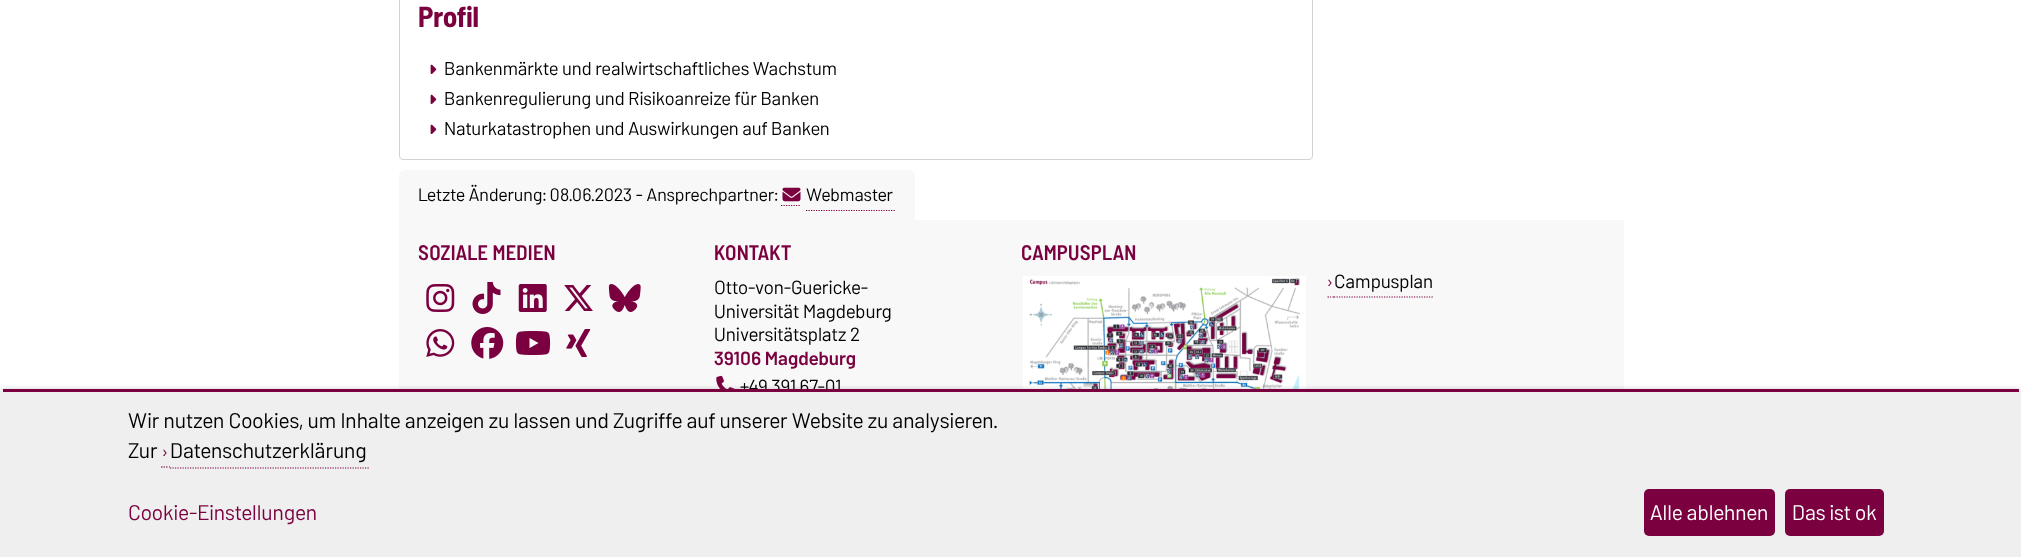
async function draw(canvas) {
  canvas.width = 2021;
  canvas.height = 557;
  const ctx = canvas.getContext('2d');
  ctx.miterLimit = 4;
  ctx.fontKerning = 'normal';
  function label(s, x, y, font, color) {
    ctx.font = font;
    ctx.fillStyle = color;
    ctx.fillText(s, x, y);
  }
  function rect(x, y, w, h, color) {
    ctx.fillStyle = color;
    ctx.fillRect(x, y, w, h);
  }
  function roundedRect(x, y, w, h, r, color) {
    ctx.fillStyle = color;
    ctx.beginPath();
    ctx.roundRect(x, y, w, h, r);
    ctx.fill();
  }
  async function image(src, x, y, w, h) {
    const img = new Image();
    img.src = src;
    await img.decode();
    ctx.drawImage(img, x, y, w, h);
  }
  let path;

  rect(0, 0, 2021, 557, '#fff');
  ctx.beginPath();
  ctx.roundRect(399.5, -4.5, 913, 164, 3.5);
  ctx.strokeStyle = '#cfd3d6';
  ctx.stroke();
  label('Profil', 418, 27, 'bold 29px Barlow Semi Condensed', '#7a003f');
  await image('assets/img1.png', 430, 64, 7, 10);
  label('Bankenmärkte und realwirtschaftliches Wachstum', 444, 75, '18.6px Barlow', '#000');
  await image('assets/img1.png', 430, 94, 7, 10);
  label('Bankenregulierung und Risikoanreize für Banken', 444, 105, '18.6px Barlow', '#000');
  await image('assets/img1.png', 430, 124, 7, 10);
  label('Naturkatastrophen und Auswirkungen auf Banken', 444, 135, '18.6px Barlow', '#000');
  ctx.fillStyle = '#f8f8f8';
  ctx.beginPath();
  ctx.roundRect(399, 170, 516, 50, [6, 6, 0, 0]);
  ctx.fill();
  label('Letzte Änderung: 08.06.2023 - Ansprechpartner:', 418, 201, '18px Barlow', '#000');
  path = new Path2D('M781 205.5H801');
  ctx.strokeStyle = '#7a003f';
  ctx.lineWidth = 1.2;
  ctx.setLineDash([1.25, 1.25]);
  ctx.stroke(path);
  path = new Path2D('M806 210.5H895');
  ctx.stroke(path);
  await image('assets/img2.png', 782, 187, 19, 15);
  label('Webmaster', 806, 201, '18px Barlow', '#000');
  rect(399, 220, 1225, 169, '#f8f8f8');
  ctx.letterSpacing = '0.25px';
  label('SOZIALE MEDIEN', 418, 260, '600 21px Barlow Semi Condensed', '#7a003f');
  await image('assets/img3.png', 426, 284, 29, 28);
  await image('assets/img4.png', 472, 282, 29, 32);
  await image('assets/img5.png', 518, 284, 29, 28);
  await image('assets/img6.png', 564, 285, 29, 26);
  await image('assets/img7.png', 608, 284, 33, 28);
  await image('assets/img8.png', 426, 329, 29, 28);
  await image('assets/img9.png', 471, 327, 33, 32);
  await image('assets/img10.png', 515, 331, 36, 24);
  await image('assets/img11.png', 566, 329, 25, 28);
  label('KONTAKT', 714, 260, '600 21px Barlow Semi Condensed', '#7a003f');
  ctx.letterSpacing = '0px';
  label('Otto-von-Guericke-', 714, 294, '19px Barlow', '#000');
  label('Universität Magdeburg', 714, 318, '19px Barlow', '#000');
  label('Universitätsplatz 2', 714, 341, '19px Barlow', '#000');
  label('39106 Magdeburg', 714, 365, '600 19px Barlow', '#7a003f');
  await image('assets/img12.png', 716, 375, 19, 14);
  label('+49 391 67-01', 740, 393, '19px Barlow', '#000');
  ctx.letterSpacing = '0.25px';
  label('CAMPUSPLAN', 1021, 260, '600 21px Barlow Semi Condensed', '#7a003f');
  await image('assets/img13.png', 1023, 276, 283, 113);
  ctx.letterSpacing = '0px';
  label('›', 1327, 288, '18px Barlow', '#7a003f');
  path = new Path2D('M1327.5 297H1329M1330 297H1331M1332.5 297H1334');
  ctx.setLineDash([]);
  ctx.stroke(path);
  label('Campusplan', 1334, 288, '19px Barlow', '#000');
  path = new Path2D('M1334 297H1434');
  ctx.setLineDash([1.25, 1.25]);
  ctx.stroke(path);
  ctx.fillStyle = '#43475545';
  ctx.filter = 'blur(2.5px)';
  ctx.beginPath();
  ctx.roundRect(0, 389, 2021, 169, 5);
  ctx.fill();
  ctx.filter = 'none';
  roundedRect(0, 389, 2021, 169, 5, '#efefef');
  rect(3, 389, 2016, 3, '#7a003f');
  label('Wir nutzen Cookies, um Inhalte anzeigen zu lassen und Zugriffe auf unserer Website zu analysieren.', 128, 428, '21.25px Barlow', '#000');
  label('Zur', 128, 458, '21.25px Barlow', '#000');
  label('›', 162, 458, '18px Barlow', '#7a003f');
  path = new Path2D('M161 467H162.5M163.5 467H165M166 467H167.5M169 467H170');
  ctx.setLineDash([]);
  ctx.stroke(path);
  label('Datenschutzerklärung', 170, 458, '21.25px Barlow', '#000');
  path = new Path2D('M170 468H369');
  ctx.setLineDash([1.25, 1.25]);
  ctx.stroke(path);
  label('Cookie-Einstellungen', 128, 520, '21.25px Barlow', '#7a003f');
  roundedRect(1644, 489, 131, 47, 5, '#7a003f');
  label('Alle ablehnen', 1650, 520, '21.25px Barlow', '#fff');
  roundedRect(1785, 489, 99, 47, 5, '#7a003f');
  label('Das ist ok', 1792, 520, '21.25px Barlow', '#fff');
}

draw(document.querySelector('canvas'));
